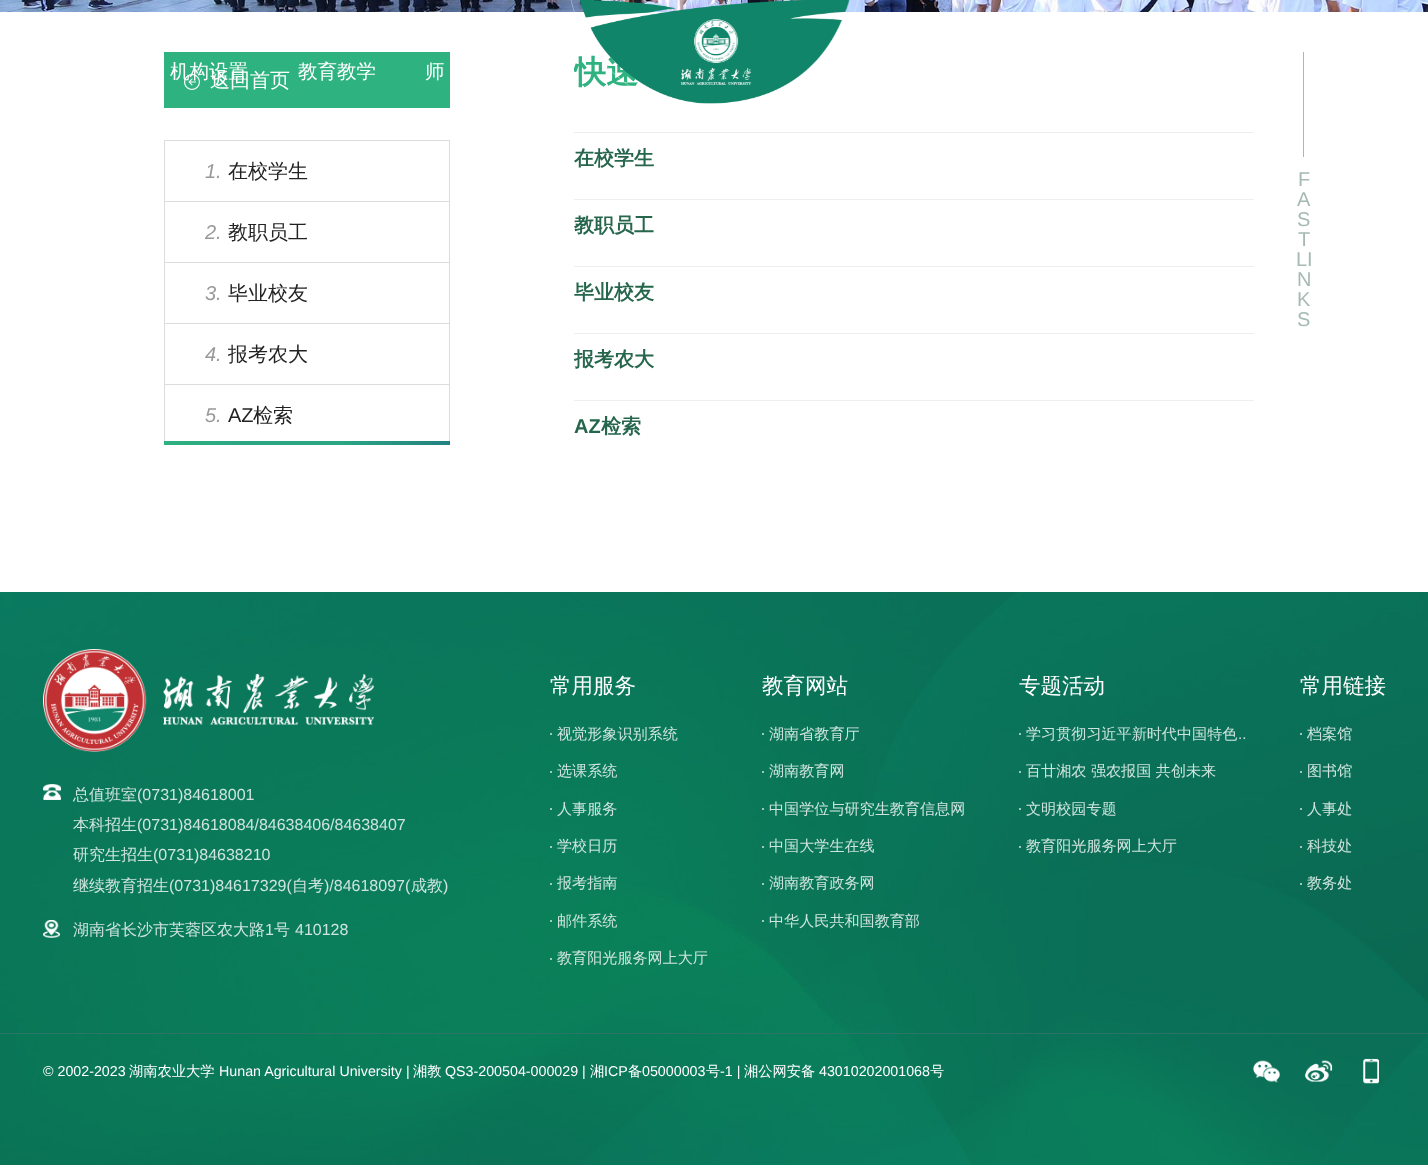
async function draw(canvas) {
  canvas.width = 1428;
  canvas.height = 1165;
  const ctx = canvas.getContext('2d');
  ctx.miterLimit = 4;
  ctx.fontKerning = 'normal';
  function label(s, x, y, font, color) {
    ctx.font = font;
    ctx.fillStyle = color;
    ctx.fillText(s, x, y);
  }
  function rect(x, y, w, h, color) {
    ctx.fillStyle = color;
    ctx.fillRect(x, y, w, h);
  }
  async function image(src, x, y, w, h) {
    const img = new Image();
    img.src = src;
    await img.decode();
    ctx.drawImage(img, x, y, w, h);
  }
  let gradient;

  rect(0, 0, 1428, 1165, '#fff');
  await image('assets/img1.png', 0, 0, 1428, 12);
  rect(164, 52, 286, 56, '#2eb380');
  await image('assets/img2.png', 184, 74, 16, 16);
  label('返回首页', 210, 87, '500 20px WenQuanYi Zen Hei', '#fff');
  rect(164, 140, 286, 1, '#dcdcdc');
  rect(449, 140, 1, 61, '#dcdcdc');
  rect(164, 140, 1, 61, '#dcdcdc');
  label('1.', 205, 178, 'italic 20px Liberation Sans', '#999');
  label('在校学生', 228, 178, '500 20px WenQuanYi Zen Hei', '#222');
  rect(164, 201, 286, 1, '#dcdcdc');
  rect(449, 201, 1, 61, '#dcdcdc');
  rect(164, 201, 1, 61, '#dcdcdc');
  label('2.', 205, 239, 'italic 20px Liberation Sans', '#999');
  label('教职员工', 228, 239, '500 20px WenQuanYi Zen Hei', '#222');
  rect(164, 262, 286, 1, '#dcdcdc');
  rect(449, 262, 1, 61, '#dcdcdc');
  rect(164, 262, 1, 61, '#dcdcdc');
  label('3.', 205, 300, 'italic 20px Liberation Sans', '#999');
  label('毕业校友', 228, 300, '500 20px WenQuanYi Zen Hei', '#222');
  rect(164, 323, 286, 1, '#dcdcdc');
  rect(449, 323, 1, 61, '#dcdcdc');
  rect(164, 323, 1, 61, '#dcdcdc');
  label('4.', 205, 361, 'italic 20px Liberation Sans', '#999');
  label('报考农大', 228, 361, '500 20px WenQuanYi Zen Hei', '#222');
  rect(164, 384, 286, 1, '#dcdcdc');
  rect(449, 384, 1, 61, '#dcdcdc');
  rect(164, 384, 1, 61, '#dcdcdc');
  label('5.', 205, 422, 'italic 20px Liberation Sans', '#999');
  label('AZ', 228, 422, '20px Liberation Sans', '#222');
  label('检索', 253, 422, '500 20px WenQuanYi Zen Hei', '#222');
  gradient = ctx.createLinearGradient(290, 491, 324, 395);
  gradient.addColorStop(0, '#2eb380');
  gradient.addColorStop(0.3, '#2ba683');
  gradient.addColorStop(0.6, '#2ba683');
  gradient.addColorStop(1, '#227e80');
  ctx.fillStyle = gradient;
  ctx.fillRect(164, 441, 286, 4);
  ctx.save();
  ctx.beginPath();
  ctx.rect(574, 52, 740, 500);
  ctx.clip();
  label('快速', 574, 83, 'bold 32px WenQuanYi Zen Hei', '#2eb380');
  ctx.restore();
  rect(574, 132, 680, 1, '#eee');
  label('在校学生', 574, 165, 'bold 20px WenQuanYi Zen Hei', '#26664d');
  rect(574, 199, 680, 1, '#eee');
  label('教职员工', 574, 232, 'bold 20px WenQuanYi Zen Hei', '#26664d');
  rect(574, 266, 680, 1, '#eee');
  label('毕业校友', 574, 299, 'bold 20px WenQuanYi Zen Hei', '#26664d');
  rect(574, 333, 680, 1, '#eee');
  label('报考农大', 574, 366, 'bold 20px WenQuanYi Zen Hei', '#26664d');
  rect(574, 400, 680, 1, '#eee');
  label('AZ', 574, 433, 'bold 20px Liberation Sans', '#26664d');
  label('检索', 601, 433, 'bold 20px WenQuanYi Zen Hei', '#26664d');
  rect(1303, 52, 1, 105, '#a6bab3');
  label('F', 1298, 186, '20px Liberation Sans', '#a6bab3');
  label('A', 1297, 206, '20px Liberation Sans', '#a6bab3');
  label('S', 1297, 226, '20px Liberation Sans', '#a6bab3');
  label('T', 1298, 246, '20px Liberation Sans', '#a6bab3');
  label('LI', 1296, 266, '20px Liberation Sans', '#a6bab3');
  label('N', 1297, 286, '20px Liberation Sans', '#a6bab3');
  label('K', 1297, 306, '20px Liberation Sans', '#a6bab3');
  label('S', 1297, 326, '20px Liberation Sans', '#a6bab3');
  label('机构设置', 170, 78, '500 19.5px WenQuanYi Zen Hei', '#fff');
  label('教育教学', 298, 78, '500 19.5px WenQuanYi Zen Hei', '#fff');
  label('师', 425, 78, '500 19.5px WenQuanYi Zen Hei', '#fff');
  await image('assets/img3.png', 570, 0, 289, 104);
  await image('assets/img4.png', 0, 592, 1428, 573);
  await image('assets/img5.png', 43, 649, 331, 103);
  await image('assets/img6.png', 43, 784, 18, 16);
  label('总值班室', 73, 800, '500 16px WenQuanYi Zen Hei', '#cee4de');
  label('(0731)84618001', 137, 800, '16px Liberation Sans', '#cee4de');
  label('本科招生', 73, 830, '500 16px WenQuanYi Zen Hei', '#cee4de');
  label('(0731)84618084/84638406/84638407', 137, 830, '16px Liberation Sans', '#cee4de');
  label('研究生招生', 73, 860, '500 16px WenQuanYi Zen Hei', '#cee4de');
  label('(0731)84638210', 153, 860, '16px Liberation Sans', '#cee4de');
  label('继续教育招生', 73, 891, '500 16px WenQuanYi Zen Hei', '#cee4de');
  label('(0731)84617329(', 169, 891, '16px Liberation Sans', '#cee4de');
  label('自考', 292, 891, '500 16px WenQuanYi Zen Hei', '#cee4de');
  label(')/84618097(', 324, 891, '16px Liberation Sans', '#cee4de');
  label('成教', 411, 891, '500 16px WenQuanYi Zen Hei', '#cee4de');
  label(')', 443, 891, '16px Liberation Sans', '#cee4de');
  await image('assets/img7.png', 43, 920, 17, 18);
  label('湖南省长沙市芙蓉区农大路', 73, 935, '500 16px WenQuanYi Zen Hei', '#cee4de');
  label('1', 265, 935, '16px Liberation Sans', '#cee4de');
  label('号', 274, 935, '500 16px WenQuanYi Zen Hei', '#cee4de');
  label('410128', 295, 935, '16px Liberation Sans', '#cee4de');
  label('常用服务', 550, 693, '500 21.5px WenQuanYi Zen Hei', '#fff');
  ctx.fillStyle = '#cee4de';
  ctx.beginPath();
  ctx.arc(551, 734, 1, 0, 2 * Math.PI);
  ctx.fill();
  label('视觉形象识别系统', 557, 739, '500 15.1px WenQuanYi Zen Hei', '#cee4de');
  ctx.fillStyle = '#cee5de';
  ctx.beginPath();
  ctx.arc(551, 772, 1, 0, 2 * Math.PI);
  ctx.fill();
  label('选课系统', 557, 776, '500 15.1px WenQuanYi Zen Hei', '#cee4de');
  ctx.fillStyle = '#cee5de';
  ctx.beginPath();
  ctx.arc(551, 809, 1, 0, 2 * Math.PI);
  ctx.fill();
  label('人事服务', 557, 814, '500 15.1px WenQuanYi Zen Hei', '#cee4de');
  ctx.fillStyle = '#cee5de';
  ctx.beginPath();
  ctx.arc(551, 847, 1, 0, 2 * Math.PI);
  ctx.fill();
  label('学校日历', 557, 851, '500 15.1px WenQuanYi Zen Hei', '#cee4de');
  ctx.fillStyle = '#cee5de';
  ctx.beginPath();
  ctx.arc(551, 884, 1, 0, 2 * Math.PI);
  ctx.fill();
  label('报考指南', 557, 888, '500 15.1px WenQuanYi Zen Hei', '#cee4de');
  ctx.fillStyle = '#cee6de';
  ctx.beginPath();
  ctx.arc(551, 921, 1, 0, 2 * Math.PI);
  ctx.fill();
  label('邮件系统', 557, 926, '500 15.1px WenQuanYi Zen Hei', '#cee4de');
  ctx.fillStyle = '#cee6de';
  ctx.beginPath();
  ctx.arc(551, 959, 1, 0, 2 * Math.PI);
  ctx.fill();
  label('教育阳光服务网上大厅', 557, 963, '500 15.1px WenQuanYi Zen Hei', '#cee4de');
  label('教育网站', 762, 693, '500 21.5px WenQuanYi Zen Hei', '#fff');
  ctx.fillStyle = '#cee4dd';
  ctx.beginPath();
  ctx.arc(763, 734, 1, 0, 2 * Math.PI);
  ctx.fill();
  label('湖南省教育厅', 769, 739, '500 15.1px WenQuanYi Zen Hei', '#cee4de');
  ctx.beginPath();
  ctx.arc(763, 772, 1, 0, 2 * Math.PI);
  ctx.fill();
  label('湖南教育网', 769, 776, '500 15.1px WenQuanYi Zen Hei', '#cee4de');
  ctx.beginPath();
  ctx.arc(763, 809, 1, 0, 2 * Math.PI);
  ctx.fill();
  label('中国学位与研究生教育信息网', 769, 814, '500 15.1px WenQuanYi Zen Hei', '#cee4de');
  ctx.fillStyle = '#cee4dd';
  ctx.beginPath();
  ctx.arc(763, 847, 1, 0, 2 * Math.PI);
  ctx.fill();
  label('中国大学生在线', 769, 851, '500 15.1px WenQuanYi Zen Hei', '#cee4de');
  ctx.beginPath();
  ctx.arc(763, 884, 1, 0, 2 * Math.PI);
  ctx.fill();
  label('湖南教育政务网', 769, 888, '500 15.1px WenQuanYi Zen Hei', '#cee4de');
  ctx.beginPath();
  ctx.arc(763, 921, 1, 0, 2 * Math.PI);
  ctx.fill();
  label('中华人民共和国教育部', 769, 926, '500 15.1px WenQuanYi Zen Hei', '#cee4de');
  label('专题活动', 1019, 693, '500 21.5px WenQuanYi Zen Hei', '#fff');
  ctx.fillStyle = '#cee3de';
  ctx.beginPath();
  ctx.arc(1020, 734, 1, 0, 2 * Math.PI);
  ctx.fill();
  label('学习贯彻习近平新时代中国特色', 1026, 739, '500 15.1px WenQuanYi Zen Hei', '#cee4de');
  label('..', 1238, 739, '15.1px Liberation Sans', '#cee4de');
  ctx.fillStyle = '#cee3de';
  ctx.beginPath();
  ctx.arc(1020, 772, 1, 0, 2 * Math.PI);
  ctx.fill();
  label('百廿湘农 强农报国 共创未来', 1026, 776, '500 15.1px WenQuanYi Zen Hei', '#cee4de');
  ctx.fillStyle = '#cee3de';
  ctx.beginPath();
  ctx.arc(1020, 809, 1, 0, 2 * Math.PI);
  ctx.fill();
  label('文明校园专题', 1026, 814, '500 15.1px WenQuanYi Zen Hei', '#cee4de');
  ctx.fillStyle = '#cee2de';
  ctx.beginPath();
  ctx.arc(1020, 847, 1, 0, 2 * Math.PI);
  ctx.fill();
  label('教育阳光服务网上大厅', 1026, 851, '500 15.1px WenQuanYi Zen Hei', '#cee4de');
  label('常用链接', 1300, 693, '500 21.5px WenQuanYi Zen Hei', '#fff');
  ctx.fillStyle = '#cee2dd';
  ctx.beginPath();
  ctx.arc(1301, 734, 1, 0, 2 * Math.PI);
  ctx.fill();
  label('档案馆', 1307, 739, '500 15.1px WenQuanYi Zen Hei', '#cee4de');
  ctx.fillStyle = '#cee2dd';
  ctx.beginPath();
  ctx.arc(1301, 772, 1, 0, 2 * Math.PI);
  ctx.fill();
  label('图书馆', 1307, 776, '500 15.1px WenQuanYi Zen Hei', '#cee4de');
  ctx.fillStyle = '#cee2dd';
  ctx.beginPath();
  ctx.arc(1301, 809, 1, 0, 2 * Math.PI);
  ctx.fill();
  label('人事处', 1307, 814, '500 15.1px WenQuanYi Zen Hei', '#cee4de');
  ctx.fillStyle = '#cee2dd';
  ctx.beginPath();
  ctx.arc(1301, 847, 1, 0, 2 * Math.PI);
  ctx.fill();
  label('科技处', 1307, 851, '500 15.1px WenQuanYi Zen Hei', '#cee4de');
  ctx.fillStyle = '#cee2dd';
  ctx.beginPath();
  ctx.arc(1301, 884, 1, 0, 2 * Math.PI);
  ctx.fill();
  label('教务处', 1307, 888, '500 15.1px WenQuanYi Zen Hei', '#cee4de');
  rect(0, 1033, 1428, 1, '#317369db');
  label('© 2002-2023', 43, 1076, '14.25px Liberation Sans', '#fff');
  label('湖南农业大学', 129, 1076, '500 14.25px WenQuanYi Zen Hei', '#fff');
  label('Hunan Agricultural University |', 219, 1076, '14.25px Liberation Sans', '#fff');
  label('湘教', 413, 1076, '500 14.25px WenQuanYi Zen Hei', '#fff');
  label('QS3-200504-000029 |', 445, 1076, '14.25px Liberation Sans', '#fff');
  label('湘', 590, 1076, '500 14.25px WenQuanYi Zen Hei', '#fff');
  label('ICP', 604, 1076, '14.25px Liberation Sans', '#fff');
  label('备', 628, 1076, '500 14.25px WenQuanYi Zen Hei', '#fff');
  label('05000003', 642, 1076, '14.25px Liberation Sans', '#fff');
  label('号', 706, 1076, '500 14.25px WenQuanYi Zen Hei', '#fff');
  label('-1 |', 720, 1076, '14.25px Liberation Sans', '#fff');
  label('湘公网安备', 744, 1076, '500 14.25px WenQuanYi Zen Hei', '#fff');
  label('43010202001068', 819, 1076, '14.25px Liberation Sans', '#fff');
  label('号', 930, 1076, '500 14.25px WenQuanYi Zen Hei', '#fff');
  await image('assets/img8.png', 1253, 1060, 27, 23);
  await image('assets/img9.png', 1305, 1060, 28, 22);
  await image('assets/img10.png', 1363, 1058, 16, 26);
}

draw(document.querySelector('canvas'));
